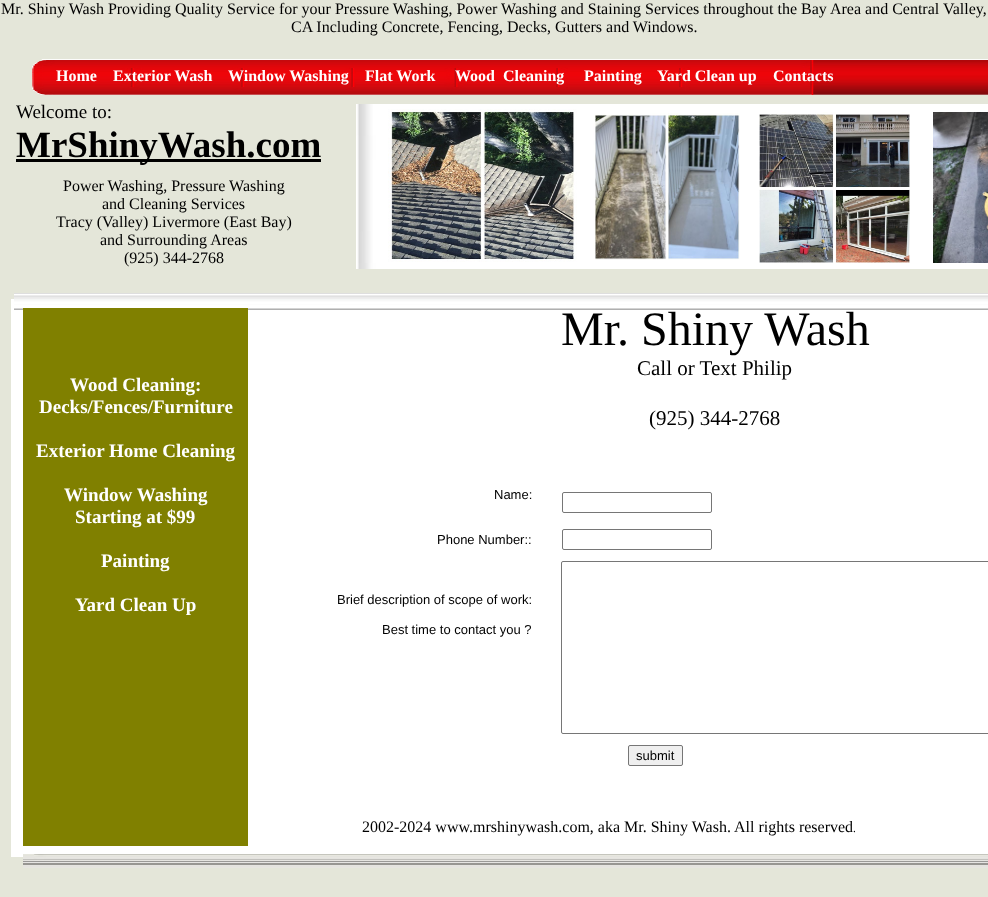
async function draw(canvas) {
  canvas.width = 988;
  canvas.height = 897;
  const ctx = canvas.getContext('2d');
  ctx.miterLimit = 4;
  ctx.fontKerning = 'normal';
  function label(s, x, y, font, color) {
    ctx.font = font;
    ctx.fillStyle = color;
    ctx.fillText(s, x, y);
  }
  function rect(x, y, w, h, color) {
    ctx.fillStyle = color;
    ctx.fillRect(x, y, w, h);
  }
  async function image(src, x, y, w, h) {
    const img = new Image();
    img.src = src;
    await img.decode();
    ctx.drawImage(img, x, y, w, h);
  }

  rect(0, 0, 988, 897, '#e4e6d9');
  label('Mr. Shiny Wash Providing Quality Service for your Pressure Washing, Power Washing and Staining Services throughout the Bay Area and Central Valley,', 1, 14, '16px Liberation Serif', '#000');
  label('CA Including Concrete, Fencing, Decks, Gutters and Windows.', 291, 32, '16px Liberation Serif', '#000');
  await image('assets/img1.png', 32, 59, 956, 36);
  label('Home', 56, 81, 'bold 16px Liberation Serif', '#fff');
  label('Exterior Wash', 113, 81, 'bold 16px Liberation Serif', '#fff');
  label('Window Washing', 228, 81, 'bold 16px Liberation Serif', '#fff');
  label('Flat Work', 365, 81, 'bold 16px Liberation Serif', '#fff');
  label('Wood  Cleaning', 455, 81, 'bold 16px Liberation Serif', '#fff');
  label('Painting', 584, 81, 'bold 16px Liberation Serif', '#fff');
  label('Yard Clean up', 657, 81, 'bold 16px Liberation Serif', '#fff');
  label('Contacts', 773, 81, 'bold 16px Liberation Serif', '#fff');
  label('Welcome to:', 16, 118, '19px Liberation Serif', '#000');
  rect(16, 159, 305, 3, '#000');
  label('MrShinyWash.com', 16, 157, 'bold 37px Liberation Serif', '#000');
  await image('assets/img2.png', 356, 104, 632, 165);
  label('Power Washing, Pressure Washing', 63, 191, '16px Liberation Serif', '#000');
  label('and Cleaning Services', 102, 209, '16px Liberation Serif', '#000');
  label('Tracy (Valley) Livermore (East Bay)', 56, 227, '16px Liberation Serif', '#000');
  label('and Surrounding Areas', 100, 245, '16px Liberation Serif', '#000');
  label('(925) 344-2768', 124, 263, '16px Liberation Serif', '#000');
  await image('assets/img3.png', 388, 109, 189, 153);
  await image('assets/img4.png', 593, 113, 147, 147);
  await image('assets/img5.png', 759, 112, 151, 151);
  await image('assets/img6.png', 933, 112, 55, 151);
  rect(11, 299, 977, 558, '#fff');
  await image('assets/img7.png', 14, 293, 974, 17);
  rect(23, 308, 225, 538, '#808000');
  label('Wood Cleaning:', 70, 391, 'bold 19px Liberation Serif', '#fff');
  label('Decks/Fences/Furniture', 39, 413, 'bold 19px Liberation Serif', '#fff');
  label('Exterior Home Cleaning', 36, 457, 'bold 19px Liberation Serif', '#fff');
  label('Window Washing', 64, 501, 'bold 19px Liberation Serif', '#fff');
  label('Starting at $99', 75, 523, 'bold 19px Liberation Serif', '#fff');
  label('Painting', 101, 567, 'bold 19px Liberation Serif', '#fff');
  label('Yard Clean Up', 75, 611, 'bold 19px Liberation Serif', '#fff');
  label('Name:', 494, 499, '13px Liberation Sans', '#000');
  label('Phone Number::', 437, 544, '13px Liberation Sans', '#000');
  label('Brief description of scope of work:', 337, 604, '13px Liberation Sans', '#000');
  label('Best time to contact you ?', 382, 634, '13px Liberation Sans', '#000');
  label('Mr. Shiny Wash', 561, 345, '48px Liberation Serif', '#000');
  label('Call or Text Philip', 637, 375, '21px Liberation Serif', '#000');
  label('(925) 344-2768', 649, 425, '21px Liberation Serif', '#000');
  ctx.beginPath();
  ctx.roundRect(562.5, 492.5, 149, 20, 1.5);
  ctx.strokeStyle = '#767676';
  ctx.stroke();
  ctx.beginPath();
  ctx.roundRect(562.5, 529.5, 149, 20, 1.5);
  ctx.stroke();
  ctx.beginPath();
  ctx.roundRect(561.5, 561.5, 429, 172, 1.5);
  ctx.stroke();
  ctx.fillStyle = '#efefef';
  ctx.beginPath();
  ctx.roundRect(628.5, 745.5, 54, 20, 1.5);
  ctx.fill();
  ctx.stroke();
  label('submit', 636, 760, '13px Liberation Sans', '#000');
  label('2002-2024 www.mrshinywash.com, aka Mr. Shiny Wash. All rights reserved', 362, 832, '16px Liberation Serif', '#000');
  label('.', 853, 832, '11px Liberation Serif', '#000');
  await image('assets/img8.png', 23, 854, 965, 14);
}

draw(document.querySelector('canvas'));
